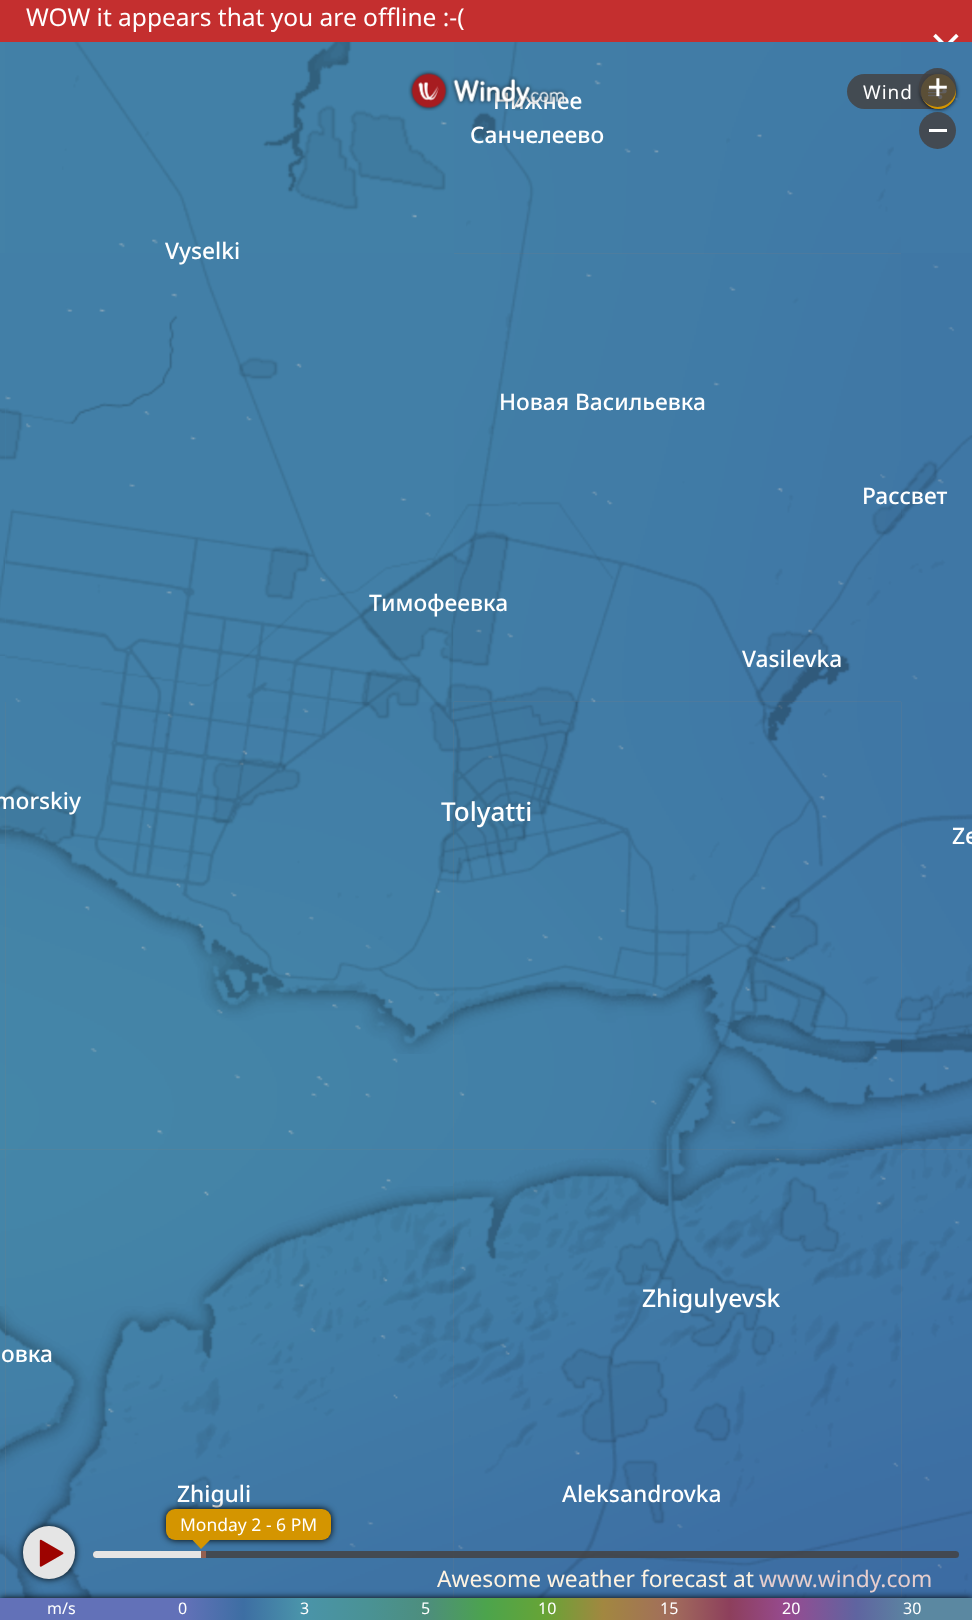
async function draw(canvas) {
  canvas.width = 972;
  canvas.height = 1620;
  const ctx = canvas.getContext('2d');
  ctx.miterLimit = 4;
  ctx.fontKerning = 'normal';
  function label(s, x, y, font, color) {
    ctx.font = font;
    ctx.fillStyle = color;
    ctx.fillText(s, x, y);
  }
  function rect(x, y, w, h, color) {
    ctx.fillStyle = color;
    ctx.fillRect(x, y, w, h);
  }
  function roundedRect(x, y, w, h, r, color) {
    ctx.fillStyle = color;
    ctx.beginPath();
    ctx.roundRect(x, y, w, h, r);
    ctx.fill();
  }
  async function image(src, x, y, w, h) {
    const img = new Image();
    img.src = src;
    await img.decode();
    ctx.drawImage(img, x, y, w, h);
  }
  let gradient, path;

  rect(0, 0, 972, 1620, '#808080');
  rect(0, 0, 972, 42, '#c42f2f');
  label('WOW it appears that you are offline :-(', 26, 26, '24.5px Noto Sans', '#fff');
  await image('assets/img1.png', 933, 33, 26, 9);
  rect(5, 42, 449, 211, '#4280a7');
  await image('assets/img9.png', 5, 702, 449, 448);
  await image('assets/img10.png', 453, 701, 449, 449);
  rect(5, 253, 449, 449, '#427fa7');
  await image('assets/img7.png', 454, 253, 447, 449);
  rect(901, 253, 71, 449, '#3f77a5');
  await image('assets/img6.png', 454, 42, 448, 212);
  rect(901, 42, 71, 211, '#4079a6');
  await image('assets/img13.png', 5, 1149, 449, 449);
  await image('assets/img8.png', 0, 701, 6, 449);
  await image('assets/img14.png', 453, 1149, 449, 449);
  await image('assets/img11.png', 901, 702, 71, 448);
  await image('assets/img12.png', 0, 1150, 6, 447);
  await image('assets/img15.png', 901, 1150, 71, 447);
  await image('assets/img32.png', 5, 62, 955, 1507);
  await image('assets/img18.png', 62, 42, 384, 212);
  await image('assets/img2.png', 408, 70, 41, 41);
  await image('assets/img19.png', 466, 42, 428, 212);
  label('Нижнее', 493, 109, '500 22.75px Noto Sans', '#fff');
  await image('assets/img3.png', 451, 76, 117, 35);
  roundedRect(847, 74, 109, 35, 17.5, '#444141d6');
  ctx.letterSpacing = '1px';
  label('Wind', 863, 99, '19px Noto Sans', '#fff');
  ctx.save();
  path = new Path2D('M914 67H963V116H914ZM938.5 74C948 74 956 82 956 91.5C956 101 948 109 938.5 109C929 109 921 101 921 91.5C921 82 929 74 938.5 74Z');
  ctx.clip(path, 'evenodd');
  ctx.fillStyle = '#000';
  ctx.filter = 'blur(2px)';
  ctx.beginPath();
  ctx.roundRect(921, 74, 35, 35, 17.5);
  ctx.fill();
  ctx.filter = 'none';
  ctx.restore();
  ctx.fillStyle = '#d49500';
  ctx.beginPath();
  ctx.arc(938.5, 91.5, 17.5, 0, 2 * Math.PI);
  ctx.fill();
  await image('assets/img4.png', 927, 88, 20, 12);
  roundedRect(919, 68, 37, 39, 18.5, '#444141d6');
  await image('assets/img5.png', 928, 78, 19, 19);
  ctx.beginPath();
  ctx.arc(937.5, 130.5, 18.5, 0, 2 * Math.PI);
  ctx.fill();
  rect(929, 129, 18, 3, '#fff');
  rect(0, 42, 5, 211, '#4381a7');
  rect(0, 253, 5, 449, '#427fa7');
  rect(0, 1597, 6, 1, '#3f77a5');
  await image('assets/img16.png', 6, 1597, 448, 1);
  await image('assets/img17.png', 453, 1597, 448, 1);
  rect(901, 1597, 71, 1, '#3c6ca3');
  await image('assets/img20.png', 0, 408, 5, 248);
  await image('assets/img25.png', 5, 701, 449, 353);
  await image('assets/img26.png', 453, 701, 449, 449);
  await image('assets/img21.png', 5, 254, 449, 448);
  await image('assets/img22.png', 453, 254, 449, 448);
  await image('assets/img23.png', 901, 435, 71, 138);
  await image('assets/img24.png', 0, 795, 5, 49);
  await image('assets/img27.png', 901, 814, 71, 336);
  await image('assets/img28.png', 0, 1306, 5, 251);
  await image('assets/img29.png', 5, 1186, 449, 412);
  await image('assets/img30.png', 453, 1149, 448, 449);
  await image('assets/img31.png', 901, 1150, 71, 448);
  ctx.letterSpacing = '0px';
  label('Санчелеево', 470, 143, '500 22.75px Noto Sans', '#fff');
  label('Vyselki', 165, 259, '500 22.75px Noto Sans', '#fff');
  label('Новая Васильевка', 499, 410, '500 22.75px Noto Sans', '#fff');
  label('Vasilevka', 742, 667, '500 22.75px Noto Sans', '#fff');
  label('Рассвет', 862, 504, '500 22.75px Noto Sans', '#fff');
  label('Тимофеевка', 369, 611, '500 22.75px Noto Sans', '#fff');
  label('morskiy', -6, 809, '500 22.75px Noto Sans', '#fff');
  label('Tolyatti', 441, 821, '500 26px Noto Sans', '#fff');
  label('Ze', 952, 844, '500 22.75px Noto Sans', '#fff');
  label('овка', 1, 1362, '500 22.75px Noto Sans', '#fff');
  label('Zhigulyevsk', 642, 1307, '500 24.5px Noto Sans', '#fff');
  label('Aleksandrovka', 562, 1502, '500 22.75px Noto Sans', '#fff');
  label('Zhiguli', 177, 1502, '500 22.75px Noto Sans', '#fff');
  ctx.fillStyle = '#000';
  ctx.filter = 'blur(3.5px)';
  ctx.beginPath();
  ctx.roundRect(23, 1526, 52, 53, 26);
  ctx.fill();
  ctx.filter = 'none';
  roundedRect(23, 1526, 52, 53, 26, '#e5e5e5');
  await image('assets/img33.png', 39, 1539, 25, 28);
  ctx.fillStyle = '#000';
  ctx.filter = 'blur(3.5px)';
  ctx.beginPath();
  ctx.roundRect(166, 1509, 165, 31, 9);
  ctx.fill();
  ctx.filter = 'none';
  roundedRect(166, 1509, 165, 31, 9, '#d49500');
  label('Monday 2 - 6 PM', 180, 1531, '17.5px Noto Sans', '#fff');
  ctx.fillStyle = '#d49500';
  path = new Path2D('M192.5 1540H210L201 1549Z');
  ctx.fill(path);
  roundedRect(93, 1551, 866, 7, 3.5, '#444141d6');
  ctx.fillStyle = '#e5e5e5';
  ctx.beginPath();
  ctx.roundRect(93, 1551, 108, 7, [3.5, 0, 0, 3.5]);
  ctx.fill();
  rect(201, 1551, 5, 7, '#946051');
  ctx.fillStyle = '#000';
  ctx.filter = 'blur(3.5px)';
  ctx.beginPath();
  ctx.rect(0, 1598, 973, 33);
  ctx.fill();
  ctx.filter = 'none';
  label('Awesome weather forecast at', 437, 1587, '22.75px Noto Sans', '#fff3e1');
  label('www.windy.com', 759, 1587, '22.75px Noto Sans', '#e6cece');
  gradient = ctx.createLinearGradient(0, 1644, 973, 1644);
  gradient.addColorStop(0, '#6271b8');
  gradient.addColorStop(0.19, '#6271b8');
  gradient.addColorStop(0.25, '#3d6ea3');
  gradient.addColorStop(0.31, '#4a94aa');
  gradient.addColorStop(0.38, '#4a9294');
  gradient.addColorStop(0.44, '#4d8e7c');
  gradient.addColorStop(0.5, '#4ca44c');
  gradient.addColorStop(0.56, '#67a436');
  gradient.addColorStop(0.62, '#a28740');
  gradient.addColorStop(0.69, '#a26d5c');
  gradient.addColorStop(0.75, '#8d3f5c');
  gradient.addColorStop(0.81, '#974b91');
  gradient.addColorStop(0.88, '#5f64a0');
  gradient.addColorStop(0.94, '#5b88a1');
  gradient.addColorStop(1, '#5b88a1');
  ctx.fillStyle = gradient;
  ctx.fillRect(0, 1598, 972, 22);
  label('m/s', 47, 1614, '16px Noto Sans', '#fff');
  label('0', 178, 1614, '16px Noto Sans', '#fff');
  label('3', 300, 1614, '16px Noto Sans', '#fff');
  label('5', 421, 1614, '16px Noto Sans', '#fff');
  label('10', 538, 1614, '16px Noto Sans', '#fff');
  label('15', 660, 1614, '16px Noto Sans', '#fff');
  label('20', 782, 1614, '16px Noto Sans', '#fff');
  label('30', 903, 1614, '16px Noto Sans', '#fff');
}

draw(document.querySelector('canvas'));
